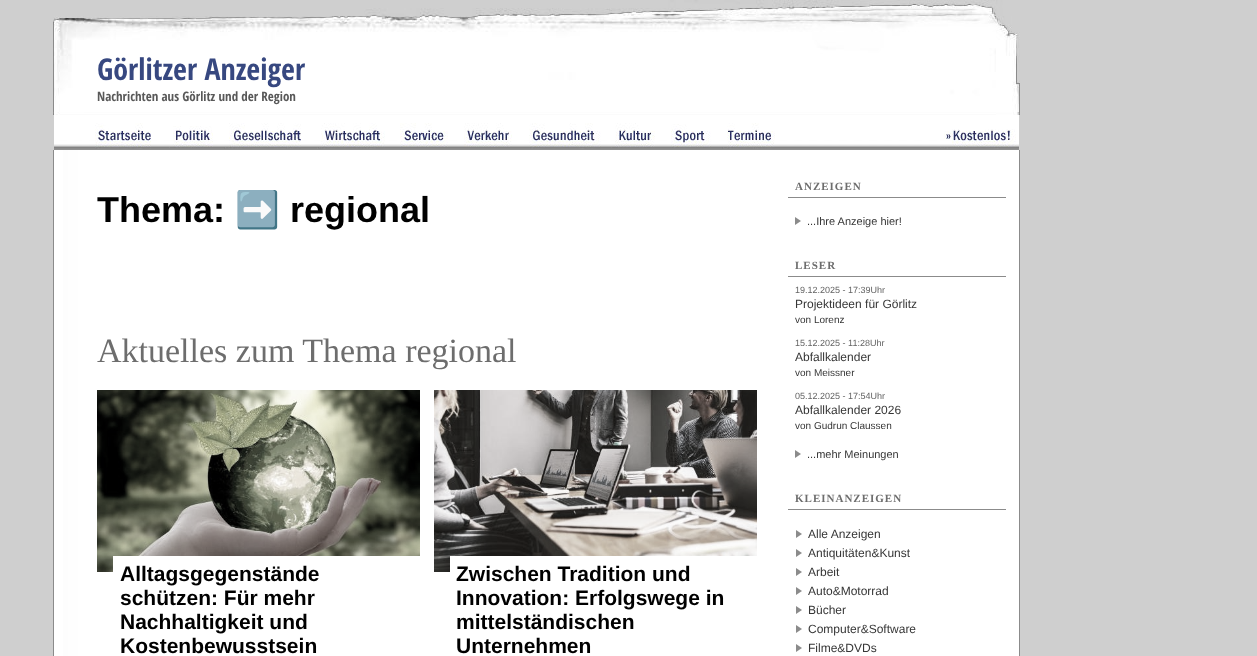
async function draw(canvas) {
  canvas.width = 1257;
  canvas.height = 656;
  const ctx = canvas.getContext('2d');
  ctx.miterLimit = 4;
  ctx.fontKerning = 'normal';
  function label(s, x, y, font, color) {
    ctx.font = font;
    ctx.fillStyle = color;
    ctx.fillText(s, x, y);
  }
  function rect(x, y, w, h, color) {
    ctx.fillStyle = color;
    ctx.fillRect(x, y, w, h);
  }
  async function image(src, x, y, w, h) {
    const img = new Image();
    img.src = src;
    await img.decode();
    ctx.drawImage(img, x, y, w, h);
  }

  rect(0, 0, 1257, 656, '#cfcfcf');
  await image('assets/img1.png', 44, 0, 980, 656);
  await image('assets/img2.png', 53, 0, 967, 115);
  label('Görlitzer Anzeiger', 97, 80, 'bold 30px Open Sans Condensed', '#374880');
  label('Nachrichten aus Görlitz und der Region', 97, 101, 'bold 13px Open Sans Condensed', '#595959');
  await image('assets/img3.png', 54, 115, 965, 35);
  rect(53, 115, 1, 35, '#cfcfcf');
  await image('assets/img4.png', 95, 123, 56, 26);
  await image('assets/img5.png', 169, 126, 44, 22);
  await image('assets/img6.png', 224, 123, 77, 26);
  await image('assets/img7.png', 317, 123, 68, 26);
  await image('assets/img8.png', 400, 123, 48, 24);
  await image('assets/img9.png', 464, 123, 48, 24);
  await image('assets/img10.png', 529, 123, 72, 26);
  await image('assets/img11.png', 611, 123, 44, 25);
  await image('assets/img12.png', 671, 124, 40, 24);
  await image('assets/img13.png', 722, 123, 53, 26);
  rect(1019, 115, 1, 35, '#cfcfcf');
  await image('assets/img14.png', 940, 129, 76, 20);
  label('Thema:', 97, 222, 'bold 36px Liberation Sans', '#000');
  label('➡️', 235, 222, 'bold 36px Noto Color Emoji', '#000');
  label('regional', 290, 222, 'bold 36px Liberation Sans', '#000');
  label('Aktuelles zum Thema regional', 97, 362, '34px Liberation Serif', '#6d6d6d');
  await image('assets/img15.png', 97, 390, 323, 182);
  rect(113, 556, 307, 16, '#fff');
  label('Alltagsgegenstände', 120, 581, 'bold 21px Liberation Sans', '#000');
  label('schützen: Für mehr', 120, 605, 'bold 21px Liberation Sans', '#000');
  label('Nachhaltigkeit und', 120, 629, 'bold 21px Liberation Sans', '#000');
  label('Kostenbewusstsein', 120, 653, 'bold 21px Liberation Sans', '#000');
  await image('assets/img16.png', 434, 390, 323, 182);
  rect(450, 556, 307, 16, '#fff');
  label('Zwischen Tradition und', 456, 581, 'bold 21px Liberation Sans', '#000');
  label('Innovation: Erfolgswege in', 456, 605, 'bold 21px Liberation Sans', '#000');
  label('mittelständischen', 456, 629, 'bold 21px Liberation Sans', '#000');
  label('Unternehmen', 456, 653, 'bold 21px Liberation Sans', '#000');
  rect(787, 197, 220, 1, '#8b8b8b');
  rect(1006, 197, 1, 1, '#fff');
  rect(787, 197, 1, 1, '#fff');
  ctx.letterSpacing = '1px';
  label('ANZEIGEN', 795, 190, 'bold 11px Liberation Serif', '#6d6d6d');
  await image('assets/img17.png', 795, 217, 6, 8);
  ctx.letterSpacing = '0px';
  label('...Ihre Anzeige hier!', 807, 225, '11px Liberation Sans', '#363636');
  rect(787, 276, 220, 1, '#8b8b8b');
  rect(1006, 276, 1, 1, '#fff');
  rect(787, 276, 1, 1, '#fff');
  ctx.letterSpacing = '1px';
  label('LESER', 795, 269, 'bold 11px Liberation Serif', '#6d6d6d');
  ctx.letterSpacing = '0px';
  label('19.12.2025 - 17:39Uhr', 795, 293, '9px Liberation Sans', '#636363');
  label('Projektideen für Görlitz', 795, 308, '12px Liberation Sans', '#363636');
  label('von Lorenz', 795, 323, '10px Liberation Sans', '#363636');
  label('15.12.2025 - 11:28Uhr', 795, 346, '9px Liberation Sans', '#636363');
  label('Abfallkalender', 795, 361, '12px Liberation Sans', '#363636');
  label('von Meissner', 795, 376, '10px Liberation Sans', '#363636');
  label('05.12.2025 - 17:54Uhr', 795, 399, '9px Liberation Sans', '#636363');
  label('Abfallkalender 2026', 795, 414, '12px Liberation Sans', '#363636');
  label('von Gudrun Claussen', 795, 429, '10px Liberation Sans', '#363636');
  await image('assets/img17.png', 795, 450, 6, 8);
  label('...mehr Meinungen', 807, 458, '11px Liberation Sans', '#363636');
  rect(787, 509, 220, 1, '#8b8b8b');
  rect(1006, 509, 1, 1, '#fff');
  rect(787, 509, 1, 1, '#fff');
  ctx.letterSpacing = '1px';
  label('KLEINANZEIGEN', 795, 502, 'bold 11px Liberation Serif', '#6d6d6d');
  await image('assets/img17.png', 796, 530, 6, 8);
  ctx.letterSpacing = '0px';
  label('Alle Anzeigen', 808, 538, '12px Liberation Sans', '#363636');
  await image('assets/img17.png', 796, 549, 6, 8);
  label('Antiquitäten&Kunst', 808, 557, '12px Liberation Sans', '#363636');
  await image('assets/img17.png', 796, 568, 6, 8);
  label('Arbeit', 808, 576, '12px Liberation Sans', '#363636');
  await image('assets/img17.png', 796, 587, 6, 8);
  label('Auto&Motorrad', 808, 595, '12px Liberation Sans', '#363636');
  await image('assets/img17.png', 796, 606, 6, 8);
  label('Bücher', 808, 614, '12px Liberation Sans', '#363636');
  await image('assets/img17.png', 796, 625, 6, 8);
  label('Computer&Software', 808, 633, '12px Liberation Sans', '#363636');
  await image('assets/img17.png', 796, 644, 6, 8);
  label('Filme&DVDs', 808, 652, '12px Liberation Sans', '#363636');
}

draw(document.querySelector('canvas'));
